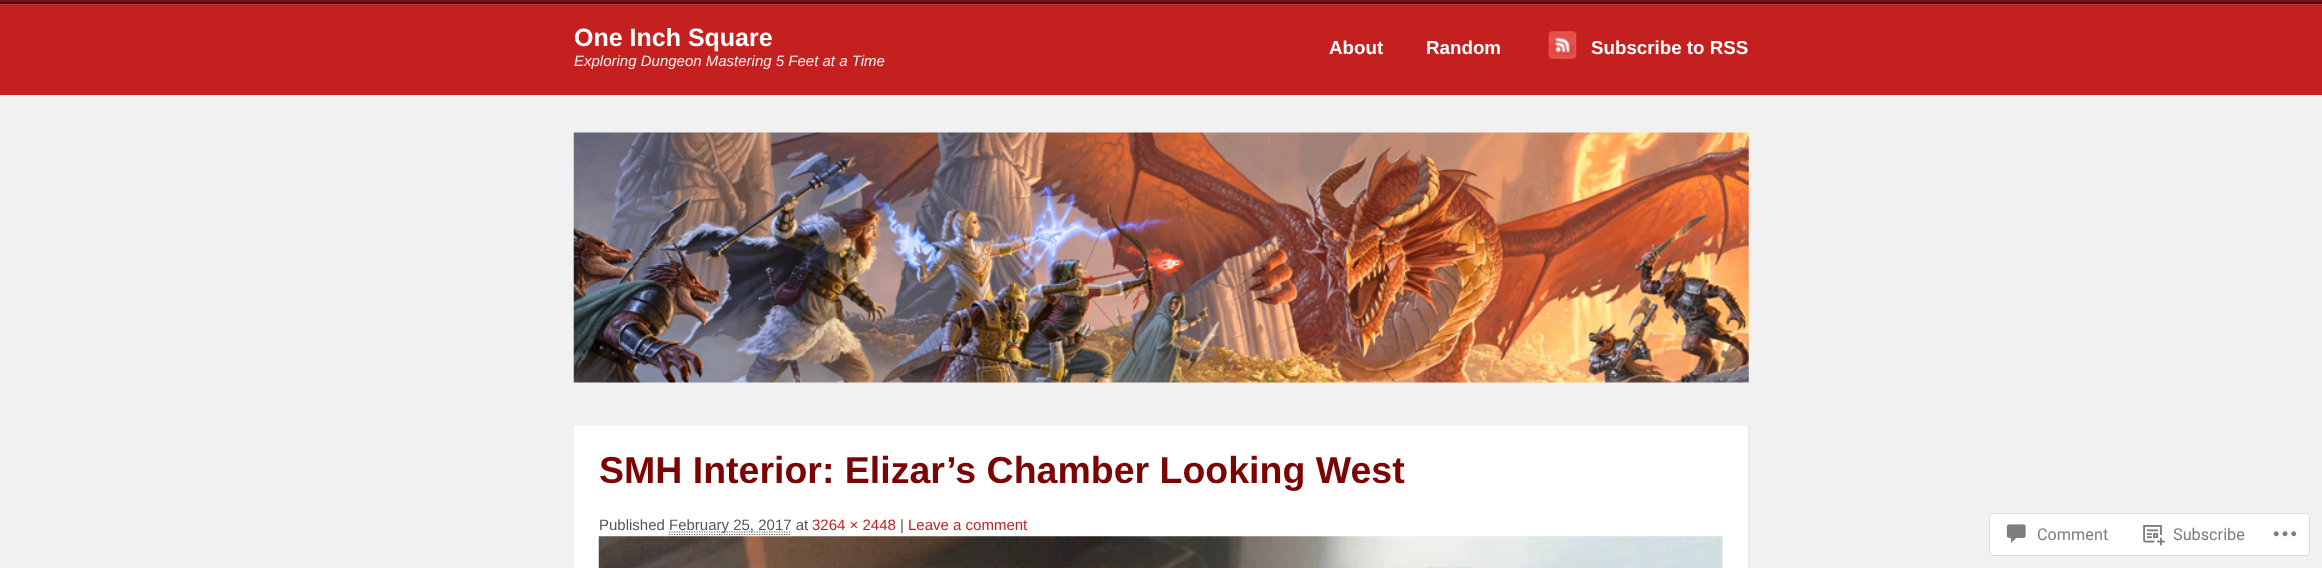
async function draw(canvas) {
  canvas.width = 2322;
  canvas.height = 568;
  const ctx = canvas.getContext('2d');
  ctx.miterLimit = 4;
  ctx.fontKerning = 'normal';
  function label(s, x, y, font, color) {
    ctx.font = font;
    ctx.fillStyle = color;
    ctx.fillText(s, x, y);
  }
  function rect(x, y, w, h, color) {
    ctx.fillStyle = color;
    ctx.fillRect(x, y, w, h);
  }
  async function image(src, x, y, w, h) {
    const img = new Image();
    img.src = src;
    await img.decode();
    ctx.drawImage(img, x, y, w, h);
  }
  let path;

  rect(0, 0, 2322, 568, '#f1f1f1');
  rect(0, 0, 2322, 95, '#c52020');
  await image('assets/img1.png', 0, 0, 2322, 5);
  label('One Inch Square', 574, 46, 'bold 25px Liberation Sans', '#fff');
  label('Exploring Dungeon Mastering 5 Feet at a Time', 574, 66, 'italic 15px Liberation Sans', '#f1f1f1');
  label('About', 1329, 54, 'bold 18.75px Liberation Sans', '#fff');
  label('Random', 1426, 54, 'bold 18.75px Liberation Sans', '#fff');
  await image('assets/img2.png', 1548, 31, 29, 28);
  label('Subscribe to RSS', 1591, 54, 'bold 18.75px Liberation Sans', '#fff');
  await image('assets/img3.png', 573, 132, 1176, 251);
  rect(574, 426, 1174, 142, '#fff');
  rect(1748, 426, 1, 142, '#e3e3e3');
  label('SMH Interior: Elizar’s Chamber Looking West', 599, 483, 'bold 37.5px Liberation Sans', '#7b0404');
  label('Published', 599, 530, '15px Liberation Sans', '#555');
  path = new Path2D('M669 534.5H791');
  ctx.strokeStyle = '#666';
  ctx.lineWidth = 1.2;
  ctx.setLineDash([1.25, 1.25]);
  ctx.stroke(path);
  path = new Path2D('M669 532H791.5');
  ctx.strokeStyle = '#555';
  ctx.stroke(path);
  label('February 25, 2017 at', 669, 530, '15px Liberation Sans', '#555');
  label('3264 × 2448', 812, 530, '15px Liberation Sans', '#c52020');
  label('|', 900, 530, '15px Liberation Sans', '#555');
  label('Leave a comment', 908, 530, '15px Liberation Sans', '#c52020');
  await image('assets/img4.png', 598, 536, 1125, 32);
  ctx.fillStyle = '#fff';
  ctx.beginPath();
  ctx.roundRect(1989.5, 513.5, 320, 42, 3.5);
  ctx.fill();
  ctx.strokeStyle = '#dcdcde';
  ctx.lineWidth = 1;
  ctx.setLineDash([]);
  ctx.stroke();
  await image('assets/img5.png', 2006, 524, 20, 19);
  label('Comment', 2037, 540, '16.25px Roboto', '#7a7e84');
  await image('assets/img6.png', 2143, 525, 22, 21);
  label('Subscribe', 2173, 540, '16.25px Roboto', '#7a7e84');
  await image('assets/img7.png', 2273, 531, 24, 6);
}

draw(document.querySelector('canvas'));
